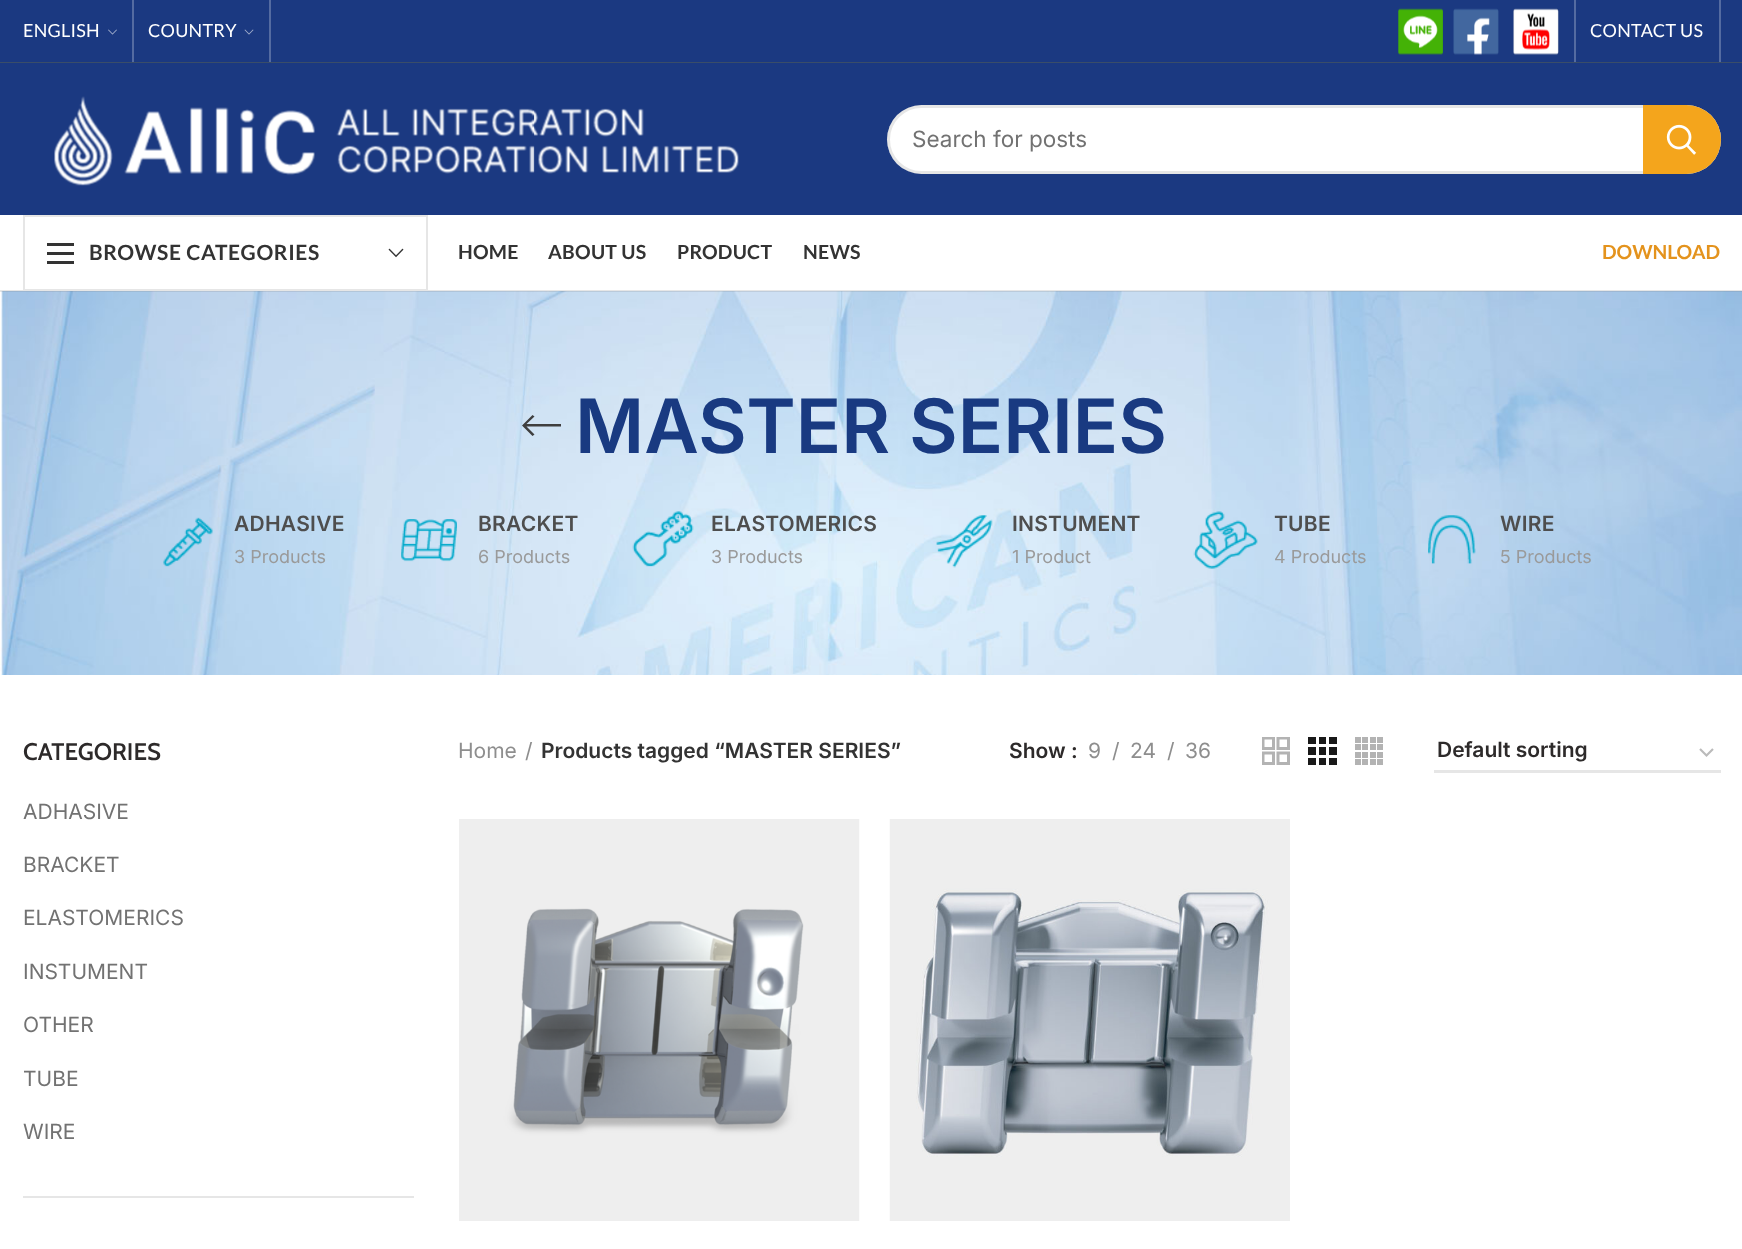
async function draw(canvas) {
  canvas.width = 1742;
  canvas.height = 1249;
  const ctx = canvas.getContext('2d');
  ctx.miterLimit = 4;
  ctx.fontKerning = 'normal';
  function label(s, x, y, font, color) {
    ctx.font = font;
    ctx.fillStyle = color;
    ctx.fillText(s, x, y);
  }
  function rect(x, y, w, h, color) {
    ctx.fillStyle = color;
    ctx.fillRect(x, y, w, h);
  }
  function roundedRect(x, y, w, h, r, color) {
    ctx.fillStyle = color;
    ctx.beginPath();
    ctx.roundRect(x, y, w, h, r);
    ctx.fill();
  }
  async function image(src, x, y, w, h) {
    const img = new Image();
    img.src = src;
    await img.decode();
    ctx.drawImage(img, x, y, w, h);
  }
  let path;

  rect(0, 0, 1742, 1249, '#fff');
  rect(0, 0, 1742, 62, '#1b3981');
  rect(0, 62, 1742, 1, '#3a4d69');
  ctx.letterSpacing = '0.25px';
  label('ENGLISH', 23, 37, '18px Lato', '#fff');
  await image('assets/img1.png', 108, 29, 9, 6);
  rect(132, 0, 2, 62, '#546ba1');
  label('COUNTRY', 148, 37, '18px Lato', '#fff');
  await image('assets/img2.png', 244, 29, 10, 6);
  rect(269, 0, 2, 62, '#546ba1');
  await image('assets/img3.png', 1398, 8, 45, 47);
  await image('assets/img4.png', 1453, 8, 46, 47);
  await image('assets/img5.png', 1513, 8, 46, 47);
  rect(1574, 0, 2, 62, '#546ba1');
  label('CONTACT US', 1590, 37, '18px Lato', '#fff');
  rect(1719, 0, 2, 62, '#546ba1');
  rect(0, 63, 1742, 152, '#1b3981');
  await image('assets/img6.png', 54, 96, 685, 90);
  roundedRect(887, 105, 834, 69, 34.5, '#fff');
  ctx.beginPath();
  ctx.roundRect(888.5, 106.5, 831, 66, 33);
  ctx.strokeStyle = '#81818133';
  ctx.lineWidth = 3;
  ctx.stroke();
  ctx.letterSpacing = '0px';
  label('Search for posts', 912, 147, '22.5px Inter', '#727272');
  ctx.fillStyle = '#f4a51c';
  ctx.beginPath();
  ctx.roundRect(1643, 105, 78, 69, [0, 34.5, 34.5, 0]);
  ctx.fill();
  await image('assets/img7.png', 1666, 124, 31, 31);
  await image('assets/img9.png', 0, 291, 1742, 384);
  rect(0, 290, 1742, 2, '#81818133');
  ctx.strokeStyle = '#e6e6e6';
  ctx.lineWidth = 2;
  ctx.strokeRect(24, 216, 403, 74);
  rect(47, 252, 27, 3, '#333');
  rect(47, 243, 27, 3, '#333');
  rect(47, 261, 27, 3, '#333');
  ctx.letterSpacing = '0.6px';
  label('BROWSE CATEGORIES', 89, 260, 'bold 21px Lato', '#333');
  await image('assets/img8.png', 388, 248, 16, 10);
  ctx.letterSpacing = '0.25px';
  label('HOME', 458, 259, 'bold 19.5px Lato', '#333');
  label('ABOUT US', 548, 259, 'bold 19.5px Lato', '#333');
  label('PRODUCT', 677, 259, 'bold 19.5px Lato', '#333');
  label('NEWS', 803, 259, 'bold 19.5px Lato', '#333');
  ctx.letterSpacing = '0px';
  label('DOWNLOAD', 1602, 259, 'bold 19.5px Lato', '#e4931d');
  ctx.fillStyle = '#3f3f3f';
  path = new Path2D('M561 424V426.5H526.5L534.5 434.5L532.5 436L522 425.5L532.5 415L534.5 416.5L526.5 424Z');
  ctx.fill(path);
  label('MASTER SERIES', 575, 453, '600 75px Inter', '#193a81');
  await image('assets/img10.png', 163, 517, 50, 50);
  ctx.letterSpacing = '0.25px';
  label('ADHASIVE', 234, 531, '600 21px Inter', '#4e4e4e');
  ctx.letterSpacing = '0px';
  label('3 Products', 234, 563, '18px Inter', '#9a9a9a');
  await image('assets/img11.png', 401, 519, 56, 43);
  ctx.letterSpacing = '0.25px';
  label('BRACKET', 478, 531, '600 21px Inter', '#4e4e4e');
  ctx.letterSpacing = '0px';
  label('6 Products', 478, 563, '18px Inter', '#9a9a9a');
  await image('assets/img12.png', 632, 511, 62, 56);
  ctx.letterSpacing = '0.25px';
  label('ELASTOMERICS', 711, 531, '600 21px Inter', '#4e4e4e');
  ctx.letterSpacing = '0px';
  label('3 Products', 711, 563, '18px Inter', '#9a9a9a');
  await image('assets/img13.png', 936, 515, 57, 53);
  ctx.letterSpacing = '0.25px';
  label('INSTUMENT', 1012, 531, '600 21px Inter', '#4e4e4e');
  ctx.letterSpacing = '0px';
  label('1 Product', 1012, 563, '18px Inter', '#9a9a9a');
  await image('assets/img14.png', 1193, 511, 65, 58);
  ctx.letterSpacing = '0.25px';
  label('TUBE', 1274, 531, '600 21px Inter', '#4e4e4e');
  ctx.letterSpacing = '0px';
  label('4 Products', 1274, 563, '18px Inter', '#9a9a9a');
  await image('assets/img15.png', 1428, 515, 48, 49);
  ctx.letterSpacing = '0.25px';
  label('WIRE', 1500, 531, '600 21px Inter', '#4e4e4e');
  ctx.letterSpacing = '0px';
  label('5 Products', 1500, 563, '18px Inter', '#9a9a9a');
  rect(23, 1196, 391, 2, '#e6e6e6');
  label('CATEGORIES', 23, 760, '600 24px Cabin', '#2d2a2a');
  label('ADHASIVE', 23, 819, '21px Inter', '#727272');
  label('BRACKET', 23, 872, '21px Inter', '#727272');
  label('ELASTOMERICS', 23, 925, '21px Inter', '#727272');
  label('INSTUMENT', 23, 979, '21px Inter', '#727272');
  label('OTHER', 23, 1032, '21px Inter', '#727272');
  label('TUBE', 23, 1086, '21px Inter', '#727272');
  label('WIRE', 23, 1139, '21px Inter', '#727272');
  label('Home', 458, 758, '21px Inter', '#8e8e8e');
  label('/', 525, 758, '21px Inter', '#8e8e8e');
  label('Products tagged “MASTER SERIES”', 541, 758, '600 21px Inter', '#333');
  label('Show :', 1009, 758, '600 21px Inter', '#2d2a2a');
  label('9', 1088, 758, '21px Inter', '#8e8e8e');
  label('/', 1112, 758, '21px Inter', '#8e8e8e');
  label('24', 1130, 758, '21px Inter', '#8e8e8e');
  label('/', 1167, 758, '21px Inter', '#8e8e8e');
  label('36', 1185, 758, '21px Inter', '#8e8e8e');
  await image('assets/img16.png', 1262, 737, 28, 28);
  await image('assets/img17.png', 1308, 737, 29, 28);
  await image('assets/img18.png', 1355, 737, 28, 28);
  path = new Path2D('M1700 749L1706.5 755.5L1713 749');
  ctx.strokeStyle = '#bbb';
  ctx.lineWidth = 2.2;
  ctx.stroke(path);
  rect(1434, 770, 287, 3, '#e6e6e6');
  label('Default sorting', 1437, 757, '600 21px Inter', '#2d2a2a');
  await image('assets/img19.png', 459, 819, 401, 402);
  await image('assets/img20.png', 889, 819, 401, 402);
}

draw(document.querySelector('canvas'));
